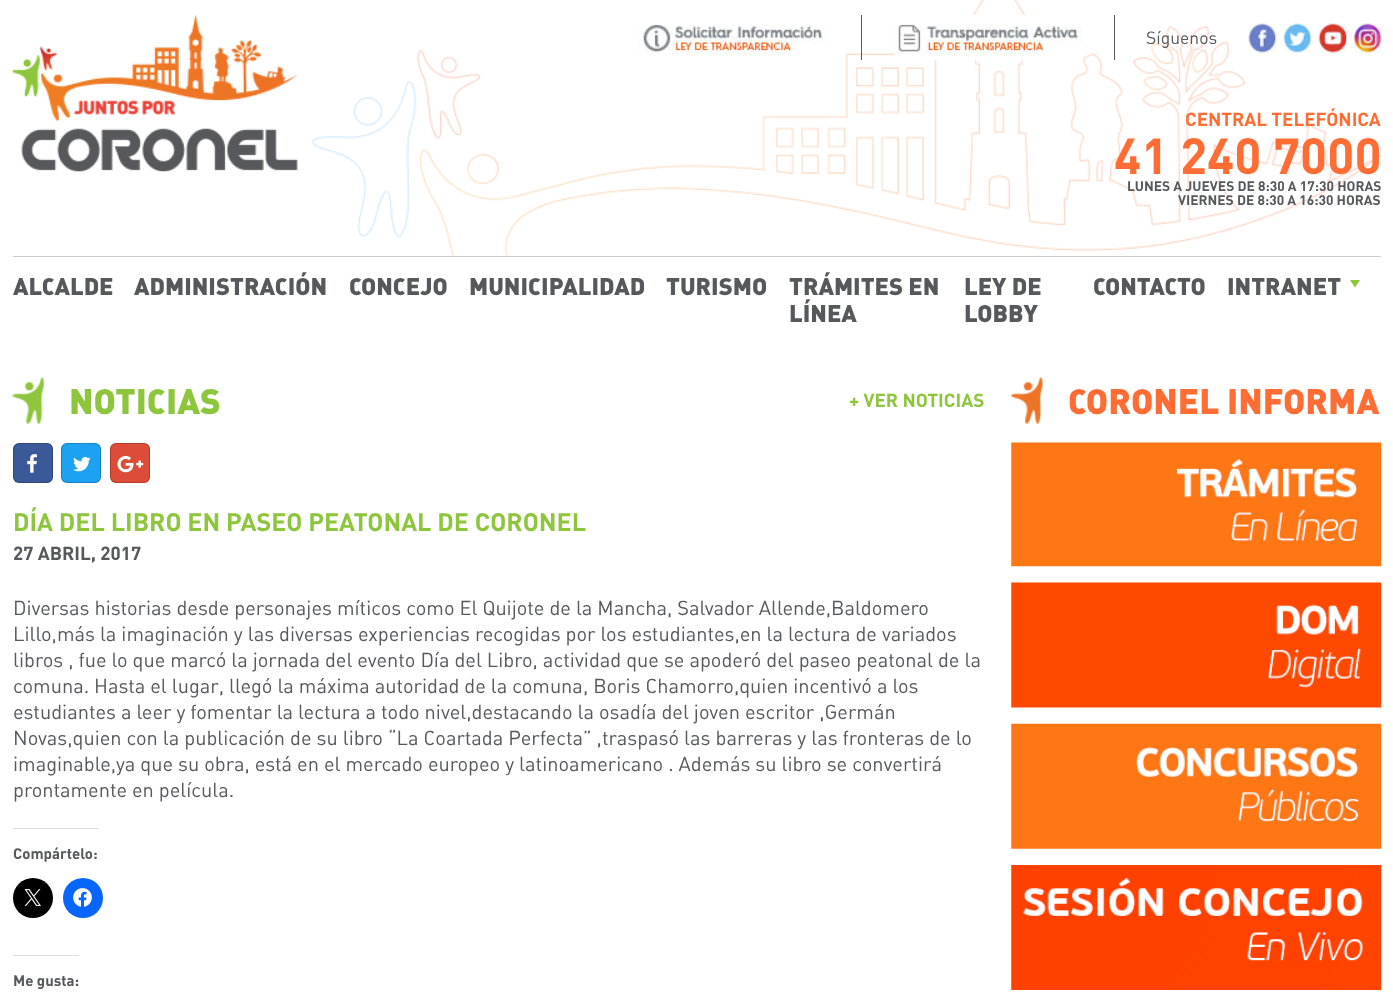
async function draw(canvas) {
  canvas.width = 1393;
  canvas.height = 997;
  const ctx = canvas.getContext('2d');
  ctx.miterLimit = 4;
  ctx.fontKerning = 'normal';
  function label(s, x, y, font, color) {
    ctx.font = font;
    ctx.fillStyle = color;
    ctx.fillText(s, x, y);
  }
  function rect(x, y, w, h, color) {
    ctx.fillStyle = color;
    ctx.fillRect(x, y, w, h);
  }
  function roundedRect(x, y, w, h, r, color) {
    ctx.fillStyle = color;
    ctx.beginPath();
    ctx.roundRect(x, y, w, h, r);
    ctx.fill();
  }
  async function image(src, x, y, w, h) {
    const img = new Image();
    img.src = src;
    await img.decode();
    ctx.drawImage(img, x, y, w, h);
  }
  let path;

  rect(0, 0, 1393, 997, '#fff');
  await image('assets/img1.png', 312, 0, 1070, 258);
  rect(13, 256, 1368, 1, '#ccc');
  await image('assets/img2.png', 12, 15, 286, 157);
  rect(861, 15, 1, 45, '#57585b');
  await image('assets/img3.png', 639, 24, 190, 31);
  rect(1114, 15, 1, 45, '#57585b');
  await image('assets/img4.png', 893, 15, 190, 45);
  label('Síguenos', 1146, 44, '17.5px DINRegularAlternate', '#57585b');
  await image('assets/img5.png', 1248, 23, 29, 30);
  await image('assets/img6.png', 1283, 23, 29, 30);
  await image('assets/img7.png', 1318, 23, 29, 30);
  await image('assets/img8.png', 1353, 23, 29, 30);
  label('CENTRAL TELEFÓNICA', 1185, 126, 'bold 18.75px DIN', '#ff6d34');
  label('41 240 7000', 1114, 174, 'bold 50px DIN', '#ff6d34');
  label('LUNES A JUEVES DE 8:30 A 17:30 HORAS', 1127, 191, 'bold 13.75px DIN', '#57585b');
  label('VIERNES DE 8:30 A 16:30 HORAS', 1178, 205, 'bold 13.75px DIN', '#57585b');
  label('ALCALDE', 13, 295, '900 23.75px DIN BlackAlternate', '#57585b');
  label('ADMINISTRACIÓN', 134, 295, '900 23.75px DIN BlackAlternate', '#57585b');
  label('CONCEJO', 349, 295, '900 23.75px DIN BlackAlternate', '#57585b');
  label('MUNICIPALIDAD', 469, 295, '900 23.75px DIN BlackAlternate', '#57585b');
  label('TURISMO', 666, 295, '900 23.75px DIN BlackAlternate', '#57585b');
  label('TRÁMITES EN', 789, 295, '900 23.75px DIN BlackAlternate', '#57585b');
  label('LÍNEA', 789, 322, '900 23.75px DIN BlackAlternate', '#57585b');
  label('LEY DE', 964, 295, '900 23.75px DIN BlackAlternate', '#57585b');
  label('LOBBY', 964, 322, '900 23.75px DIN BlackAlternate', '#57585b');
  label('CONTACTO', 1093, 295, '900 23.75px DIN BlackAlternate', '#57585b');
  label('INTRANET', 1227, 295, '900 23.75px DIN BlackAlternate', '#57585b');
  ctx.fillStyle = '#8dc53d';
  path = new Path2D('M1350 280H1360L1355 287.5Z');
  ctx.fill(path);
  await image('assets/img9.png', 12, 377, 32, 47);
  label('NOTICIAS', 69, 414, '900 35px DIN BlackAlternate', '#8dc53d');
  label('+ VER NOTICIAS', 849, 407, 'bold 18.75px DIN', '#8dc53d');
  roundedRect(13, 443, 40, 40, 6, '#3b5998');
  ctx.beginPath();
  ctx.roundRect(13.5, 443.5, 39, 39, 5.5);
  ctx.strokeStyle = '#00000033';
  ctx.stroke();
  await image('assets/img10.png', 27, 454, 10, 19);
  roundedRect(61, 443, 40, 40, 6, '#1da1f2');
  ctx.beginPath();
  ctx.roundRect(61.5, 443.5, 39, 39, 5.5);
  ctx.stroke();
  await image('assets/img11.png', 73, 457, 18, 15);
  roundedRect(110, 443, 40, 40, 6, '#dd4b39');
  ctx.beginPath();
  ctx.roundRect(110.5, 443.5, 39, 39, 5.5);
  ctx.stroke();
  await image('assets/img12.png', 117, 455, 27, 18);
  label('DÍA DEL LIBRO EN PASEO PEATONAL DE CORONEL', 13, 531, 'bold 25px DIN', '#8dc53d');
  label('27 ABRIL, 2017', 13, 560, 'bold 18.75px DIN', '#57585b');
  label('Diversas historias desde personajes míticos como El Quijote de la Mancha, Salvador Allende,Baldomero', 13, 615, '20px DINRegularAlternate', '#57585b');
  label('Lillo,más la imaginación y las diversas experiencias recogidas por los estudiantes,en la lectura de variados', 13, 641, '20px DINRegularAlternate', '#57585b');
  label('libros , fue lo que marcó la jornada del evento Día del Libro, actividad que se apoderó del paseo peatonal de la', 13, 667, '20px DINRegularAlternate', '#57585b');
  label('comuna. Hasta el lugar, llegó la máxima autoridad de la comuna, Boris Chamorro,quien incentivó a los', 13, 693, '20px DINRegularAlternate', '#57585b');
  label('estudiantes a leer y fomentar la lectura a todo nivel,destacando la osadía del joven escritor ,Germán', 13, 719, '20px DINRegularAlternate', '#57585b');
  label('Novas,quien con la publicación de su libro “La Coartada Perfecta” ,traspasó las barreras y las fronteras de lo', 13, 745, '20px DINRegularAlternate', '#57585b');
  label('imaginable,ya que su obra, está en el mercado europeo y latinoamericano . Además su libro se convertirá', 13, 771, '20px DINRegularAlternate', '#57585b');
  label('prontamente en película.', 13, 797, '20px DINRegularAlternate', '#57585b');
  rect(13, 828, 85, 1, '#dcdcde');
  label('Compártelo:', 13, 859, 'bold 15px DIN', '#57585b');
  ctx.fillStyle = '#000';
  ctx.beginPath();
  ctx.arc(33, 898, 20, 0, 2 * Math.PI);
  ctx.fill();
  await image('assets/img13.png', 24, 889, 17, 17);
  ctx.fillStyle = '#0866ff';
  ctx.beginPath();
  ctx.arc(83, 898, 20, 0, 2 * Math.PI);
  ctx.fill();
  await image('assets/img14.png', 73, 888, 19, 19);
  rect(13, 955, 66, 1, '#dcdcde');
  label('Me gusta:', 13, 986, 'bold 15px DIN', '#57585b');
  await image('assets/img15.png', 1011, 377, 32, 47);
  label('CORONEL INFORMA', 1068, 414, '900 35px DIN BlackAlternate', '#ff6d34');
  await image('assets/img16.png', 1011, 442, 371, 125);
  await image('assets/img17.png', 1011, 582, 371, 126);
  await image('assets/img18.png', 1011, 723, 371, 126);
  await image('assets/img19.png', 1011, 865, 371, 125);
}

draw(document.querySelector('canvas'));
